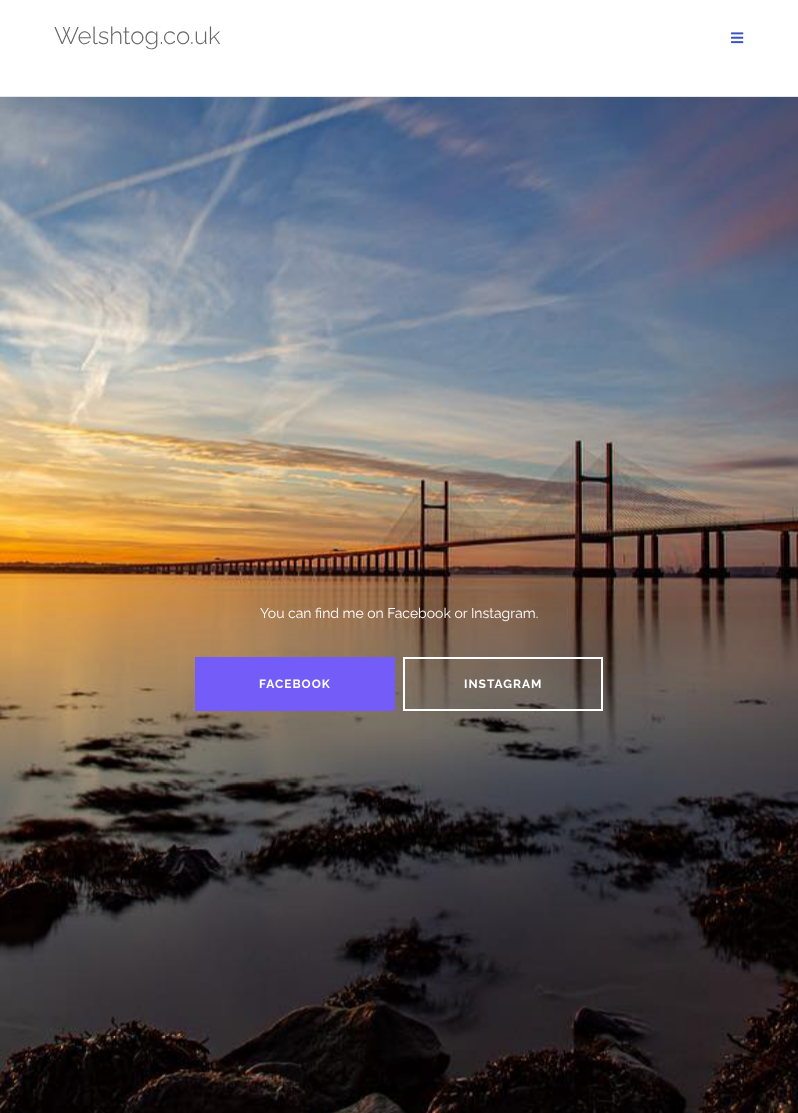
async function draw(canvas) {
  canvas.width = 798;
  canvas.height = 1113;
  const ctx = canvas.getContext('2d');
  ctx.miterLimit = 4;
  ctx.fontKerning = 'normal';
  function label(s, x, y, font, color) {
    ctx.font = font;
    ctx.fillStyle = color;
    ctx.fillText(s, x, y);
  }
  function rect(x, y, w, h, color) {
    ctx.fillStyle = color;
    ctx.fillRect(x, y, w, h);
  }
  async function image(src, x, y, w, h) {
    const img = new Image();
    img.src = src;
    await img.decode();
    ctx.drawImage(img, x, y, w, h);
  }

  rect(0, 0, 798, 1113, '#fff');
  rect(0, 96, 798, 1, '#e6e6e6');
  label('Welshtog.co.uk', 54, 44, '300 24px Raleway', '#666');
  await image('assets/img1.png', 731, 32, 13, 12);
  await image('assets/img2.png', 0, 97, 798, 1016);
  label('You can find me on Facebook or Instagram.', 260, 618, '14px Raleway', '#fff');
  rect(195, 657, 200, 54, '#745cf9');
  ctx.letterSpacing = '1px';
  label('FACEBOOK', 259, 688, 'bold 12px Raleway', '#fff');
  ctx.strokeStyle = '#fff';
  ctx.lineWidth = 2;
  ctx.strokeRect(404, 658, 198, 52);
  label('INSTAGRAM', 464, 688, 'bold 12px Raleway', '#fff');
}

draw(document.querySelector('canvas'));
